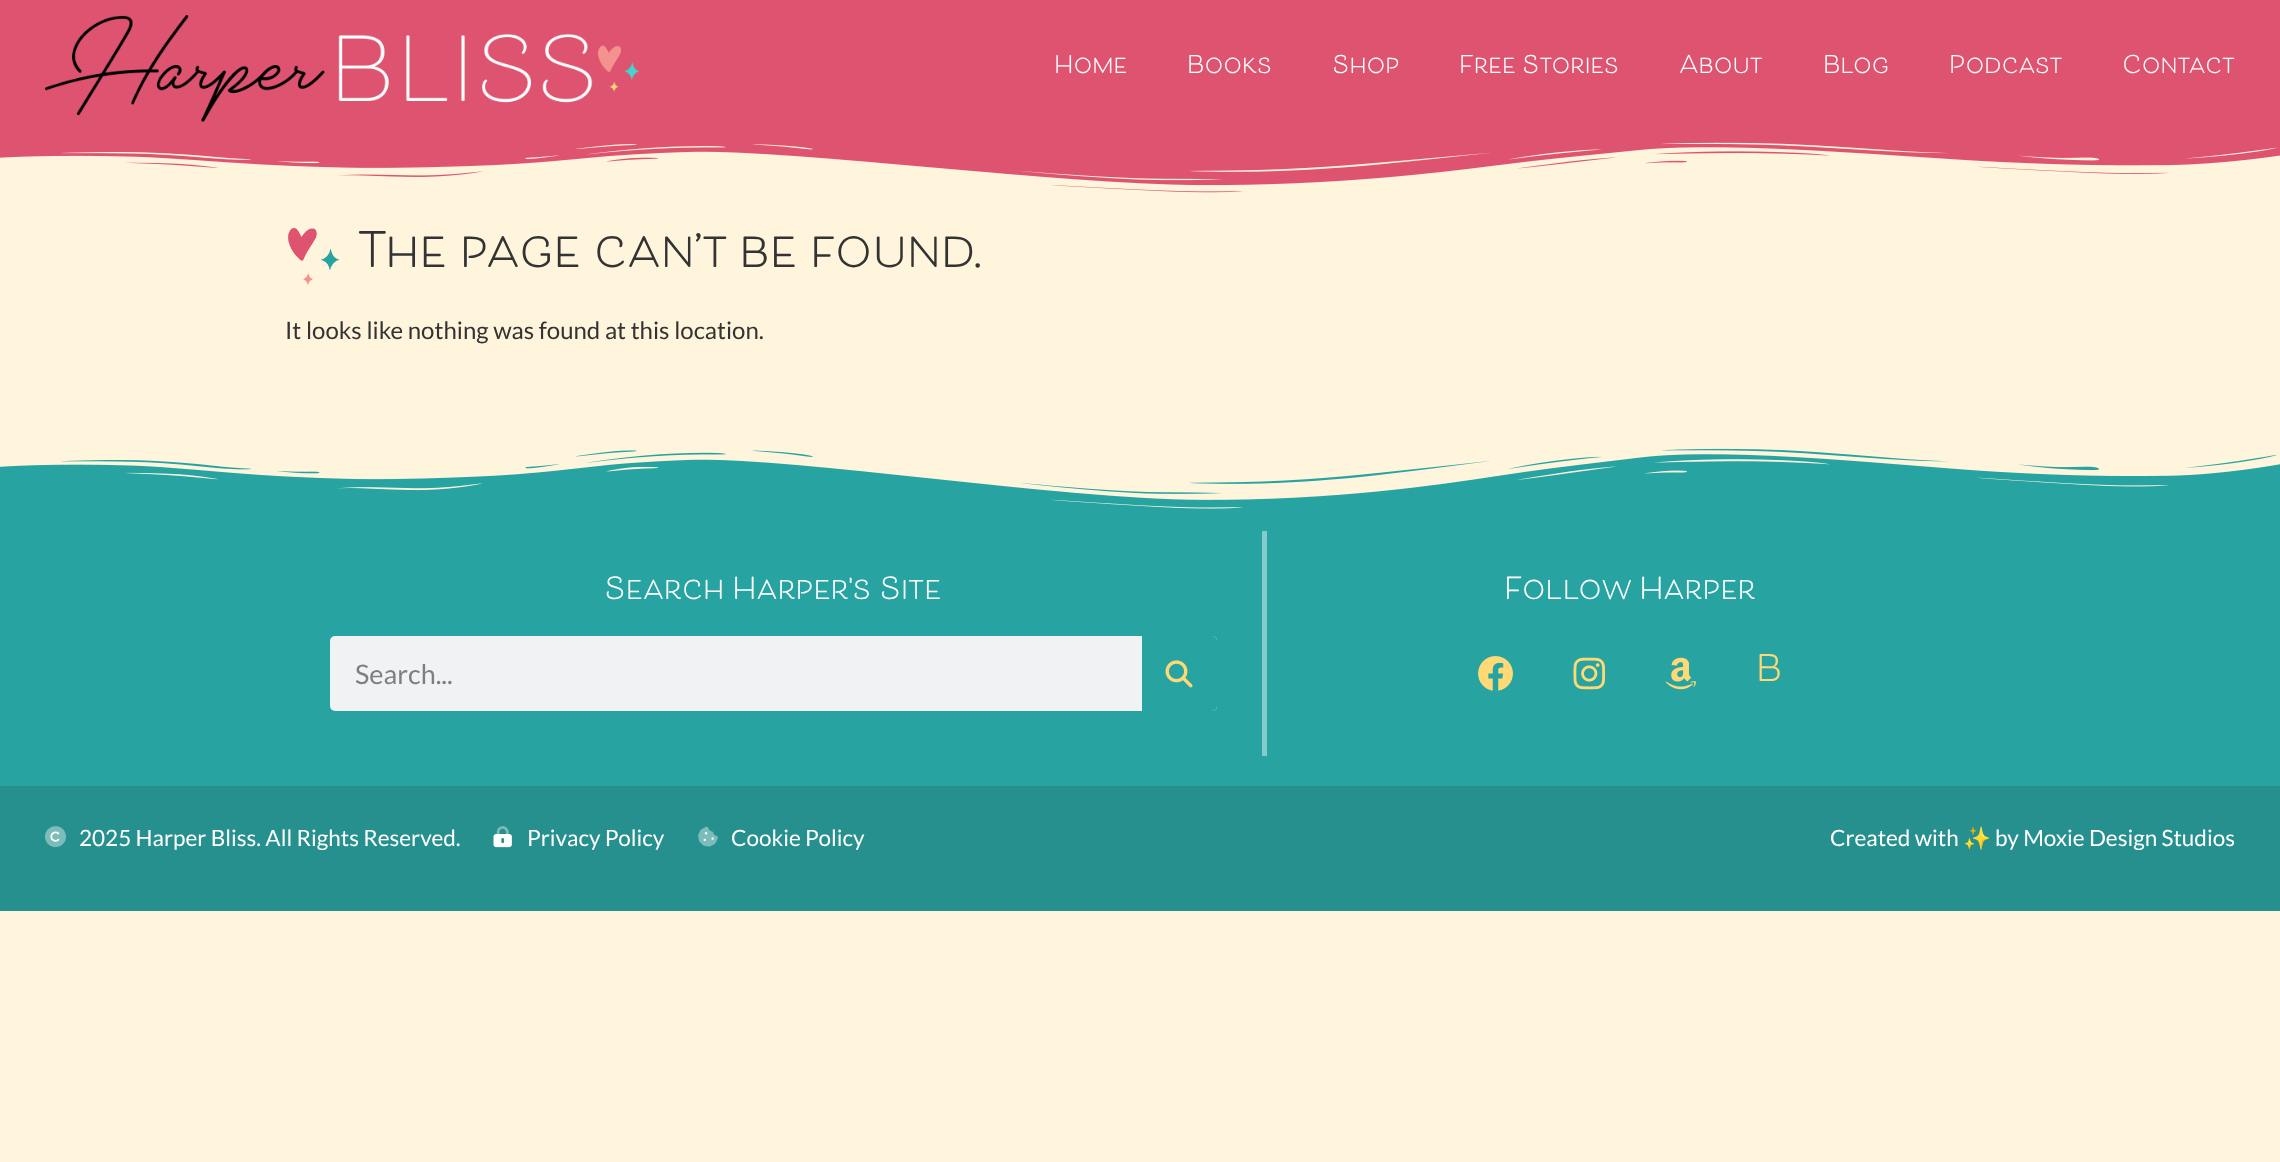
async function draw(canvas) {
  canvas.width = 2280;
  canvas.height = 1162;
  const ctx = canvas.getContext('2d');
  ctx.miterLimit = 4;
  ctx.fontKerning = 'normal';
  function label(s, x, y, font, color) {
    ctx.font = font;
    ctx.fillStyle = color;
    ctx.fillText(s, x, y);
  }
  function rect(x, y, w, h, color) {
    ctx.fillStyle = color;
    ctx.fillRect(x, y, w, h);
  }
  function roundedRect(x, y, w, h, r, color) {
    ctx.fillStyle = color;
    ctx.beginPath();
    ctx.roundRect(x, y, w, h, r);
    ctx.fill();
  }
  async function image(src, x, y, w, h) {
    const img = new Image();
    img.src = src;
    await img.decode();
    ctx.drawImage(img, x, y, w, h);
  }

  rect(0, 0, 2280, 1162, '#fff5dc');
  rect(0, 0, 2280, 137, '#de5470');
  await image('assets/img1.png', 45, 15, 594, 107);
  label('Home', 1054, 73, 'bold 24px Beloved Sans', '#fff');
  label('Books', 1187, 73, 'bold 24px Beloved Sans', '#fff');
  label('Shop', 1332, 73, 'bold 24px Beloved Sans', '#fff');
  label('Free Stories', 1459, 73, 'bold 24px Beloved Sans', '#fff');
  label('About', 1679, 73, 'bold 24px Beloved Sans', '#fff');
  label('Blog', 1823, 73, 'bold 24px Beloved Sans', '#fff');
  label('Podcast', 1949, 73, 'bold 24px Beloved Sans', '#fff');
  label('Contact', 2122, 73, 'bold 24px Beloved Sans', '#fff');
  await image('assets/img2.png', 0, 137, 2280, 56);
  await image('assets/img3.png', 288, 228, 51, 57);
  label('The page can’t be found.', 357, 267, 'bold 48px Beloved Sans', '#333');
  label('It looks like nothing was found at this location.', 285, 339, '24px Lato', '#333');
  rect(0, 448, 2280, 338, '#27a4a2');
  await image('assets/img4.png', 0, 441, 2280, 68);
  rect(1262, 531, 5, 225, '#84cbca');
  label('Search Harper\'s Site', 604, 599, 'bold 30px Beloved Sans', '#fff');
  roundedRect(330, 636, 887, 75, 5, '#f1f2f3');
  label('Search...', 355, 684, '27px Lato', '#7f7f80');
  ctx.fillStyle = '#27a4a2';
  ctx.beginPath();
  ctx.roundRect(1142, 636, 75, 75, [0, 5, 5, 0]);
  ctx.fill();
  await image('assets/img5.png', 1165, 660, 28, 28);
  label('Follow Harper', 1504, 599, 'bold 30px Beloved Sans', '#fff');
  await image('assets/img6.png', 1478, 656, 35, 35);
  await image('assets/img7.png', 1573, 657, 32, 33);
  await image('assets/img8.png', 1665, 657, 31, 33);
  label('B', 1756, 681, 'bold 36px Beloved Sans', '#ffd975');
  rect(0, 786, 2280, 125, '#26908e');
  await image('assets/img10.png', 50, 831, 10, 11);
  await image('assets/img9.png', 45, 826, 21, 22);
  label('2025 Harper Bliss. All Rights Reserved.', 79, 846, '22.5px Lato', '#fff');
  await image('assets/img11.png', 496, 826, 13, 8);
  await image('assets/img12.png', 493, 834, 19, 14);
  label('Privacy Policy', 527, 846, '22.5px Lato', '#fff');
  await image('assets/img14.png', 703, 832, 11, 10);
  await image('assets/img13.png', 698, 826, 20, 21);
  label('Cookie Policy', 731, 846, '22.5px Lato', '#fff');
  label('Created with', 1830, 846, '22.5px Lato', '#fff');
  label('✨', 1963, 846, '22.5px Noto Color Emoji', '#fff');
  label('by Moxie Design Studios', 1995, 846, '22.5px Lato', '#fff');
}

draw(document.querySelector('canvas'));
